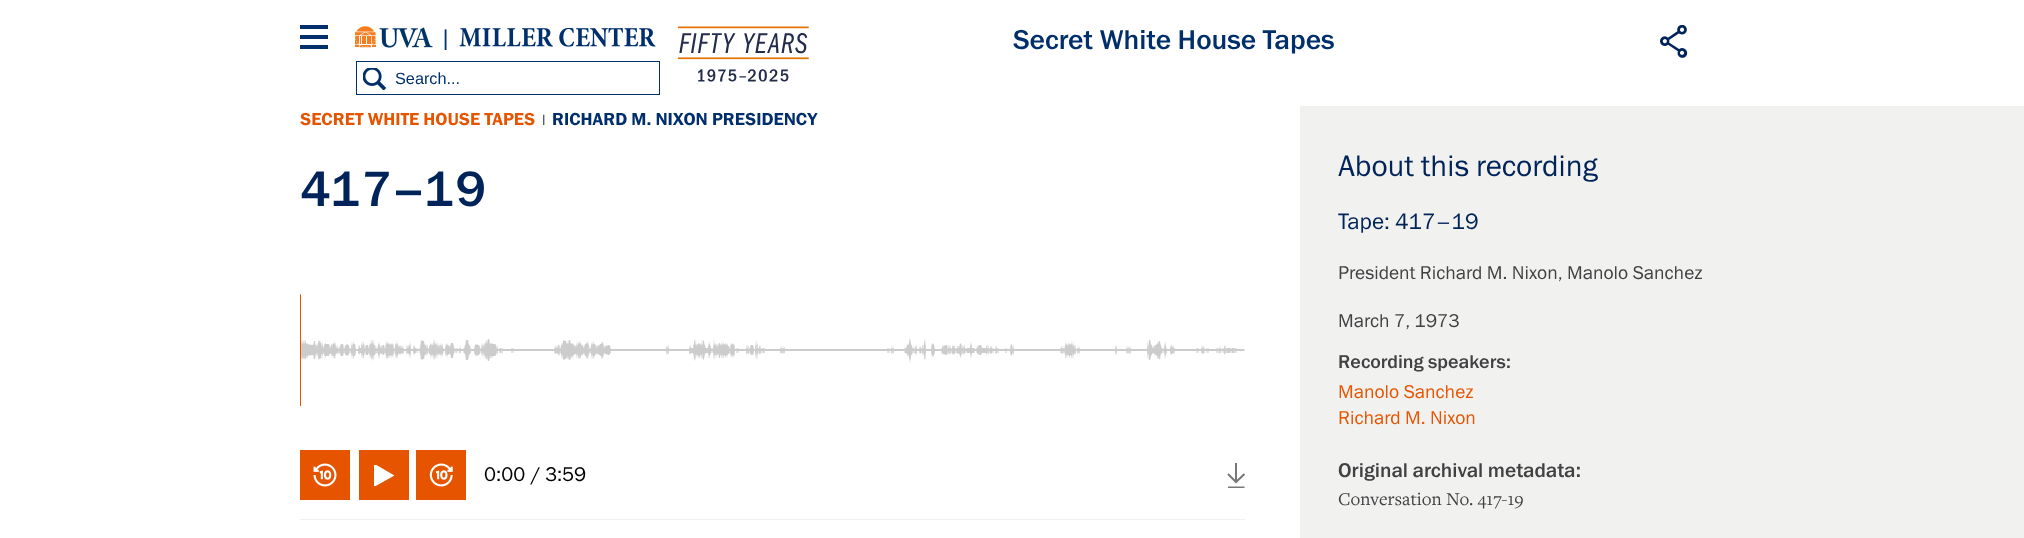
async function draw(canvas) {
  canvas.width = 2024;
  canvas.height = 538;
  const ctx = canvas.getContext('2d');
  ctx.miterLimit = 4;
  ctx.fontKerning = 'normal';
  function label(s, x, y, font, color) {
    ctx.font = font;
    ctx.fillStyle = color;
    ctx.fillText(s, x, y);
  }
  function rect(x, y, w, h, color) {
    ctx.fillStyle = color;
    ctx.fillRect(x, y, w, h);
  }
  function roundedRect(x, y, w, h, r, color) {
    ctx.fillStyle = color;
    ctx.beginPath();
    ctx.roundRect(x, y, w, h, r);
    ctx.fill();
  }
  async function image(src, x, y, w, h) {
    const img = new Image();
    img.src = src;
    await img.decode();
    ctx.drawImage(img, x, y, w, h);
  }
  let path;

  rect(0, 0, 2024, 538, '#fff');
  rect(300, 35, 28, 4, '#002f6c');
  rect(300, 25, 28, 4, '#002f6c');
  rect(300, 45, 28, 4, '#002f6c');
  await image('assets/img1.png', 355, 26, 78, 22);
  label('|', 438, 50, '30px "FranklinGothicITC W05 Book"', '#002f6c');
  await image('assets/img2.png', 459, 28, 197, 19);
  await image('assets/img3.png', 677, 26, 132, 56);
  await image('assets/img4.png', 1660, 25, 28, 33);
  ctx.strokeStyle = '#002f6c';
  ctx.strokeRect(356.5, 61.5, 303, 33);
  await image('assets/img5.png', 363, 68, 23, 22);
  label('Search...', 395, 84, '16.25px Liberation Sans', '#002f6c');
  label('Secret White House Tapes', 1013, 49, '500 27.5px "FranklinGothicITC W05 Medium"', '#002f6c');
  label('SECRET WHITE HOUSE TAPES', 300, 125, '600 17.5px "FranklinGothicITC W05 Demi"', '#e65400');
  label('|', 540, 125, '15px "FranklinGothicITC W05 Book"', '#000');
  label('RICHARD M. NIXON PRESIDENCY', 552, 125, '600 17.5px "FranklinGothicITC W05 Demi"', '#002f6c');
  label('417–19', 300, 206, '500 50px "FranklinGothicITC W05 Medium"', '#002359');
  roundedRect(300, 294, 1, 112, 0.5, '#e65400');
  await image('assets/img6.png', 301, 338, 944, 25);
  rect(300, 450, 50, 50, '#e65400');
  await image('assets/img7.png', 313, 463, 24, 24);
  rect(359, 450, 50, 50, '#e65400');
  ctx.save();
  ctx.beginPath();
  ctx.rect(374, 465, 20, 21);
  ctx.clip();
  ctx.fillStyle = '#fff';
  path = new Path2D('M394.5 475.5L373 487.5V463Z');
  ctx.fill(path);
  ctx.restore();
  rect(416, 450, 50, 50, '#e65400');
  await image('assets/img8.png', 429, 463, 24, 24);
  label('0:00 / 3:59', 484, 481, '20px "FranklinGothicITC W05 Book"', '#000');
  path = new Path2D('M1228 474L1236 482L1244.5 474');
  ctx.strokeStyle = '#777';
  ctx.lineWidth = 2;
  ctx.stroke(path);
  rect(1235, 463, 2, 19, '#777');
  ctx.save();
  ctx.beginPath();
  ctx.rect(1228, 463, 17, 25);
  ctx.clip();
  path = new Path2D('M1228 487.5H1244.5');
  ctx.stroke(path);
  ctx.restore();
  rect(300, 519, 945, 1, '#f1f1ef');
  rect(1300, 106, 724, 432, '#f1f1ef');
  label('About this recording', 1338, 176, '30px "FranklinGothicITC W05 Book"', '#002359');
  label('Tape:', 1338, 229, '22.5px "FranklinGothicITC W05 Book"', '#002359');
  label('417–19', 1395, 229, '22.5px "FranklinGothicITC W05 Book"', '#002359');
  label('President Richard M. Nixon,', 1338, 279, '18.75px "FranklinGothicITC W05 Book"', '#414042');
  label('Manolo Sanchez', 1567, 279, '18.75px "FranklinGothicITC W05 Book"', '#414042');
  label('March 7, 1973', 1338, 327, '18.75px "FranklinGothicITC W05 Book"', '#414042');
  label('Recording speakers:', 1338, 368, '500 18.75px "FranklinGothicITC W05 Medium"', '#414042');
  label('Manolo Sanchez', 1338, 398, '18.75px "FranklinGothicITC W05 Book"', '#e65400');
  label('Richard M. Nixon', 1338, 424, '18.75px "FranklinGothicITC W05 Book"', '#e65400');
  label('Original archival metadata:', 1338, 477, '500 20px "FranklinGothicITC W05 Medium"', '#414042');
  label('Conversation No. 417-19', 1338, 505, '18.75px "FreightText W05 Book"', '#414042');
}

draw(document.querySelector('canvas'));
